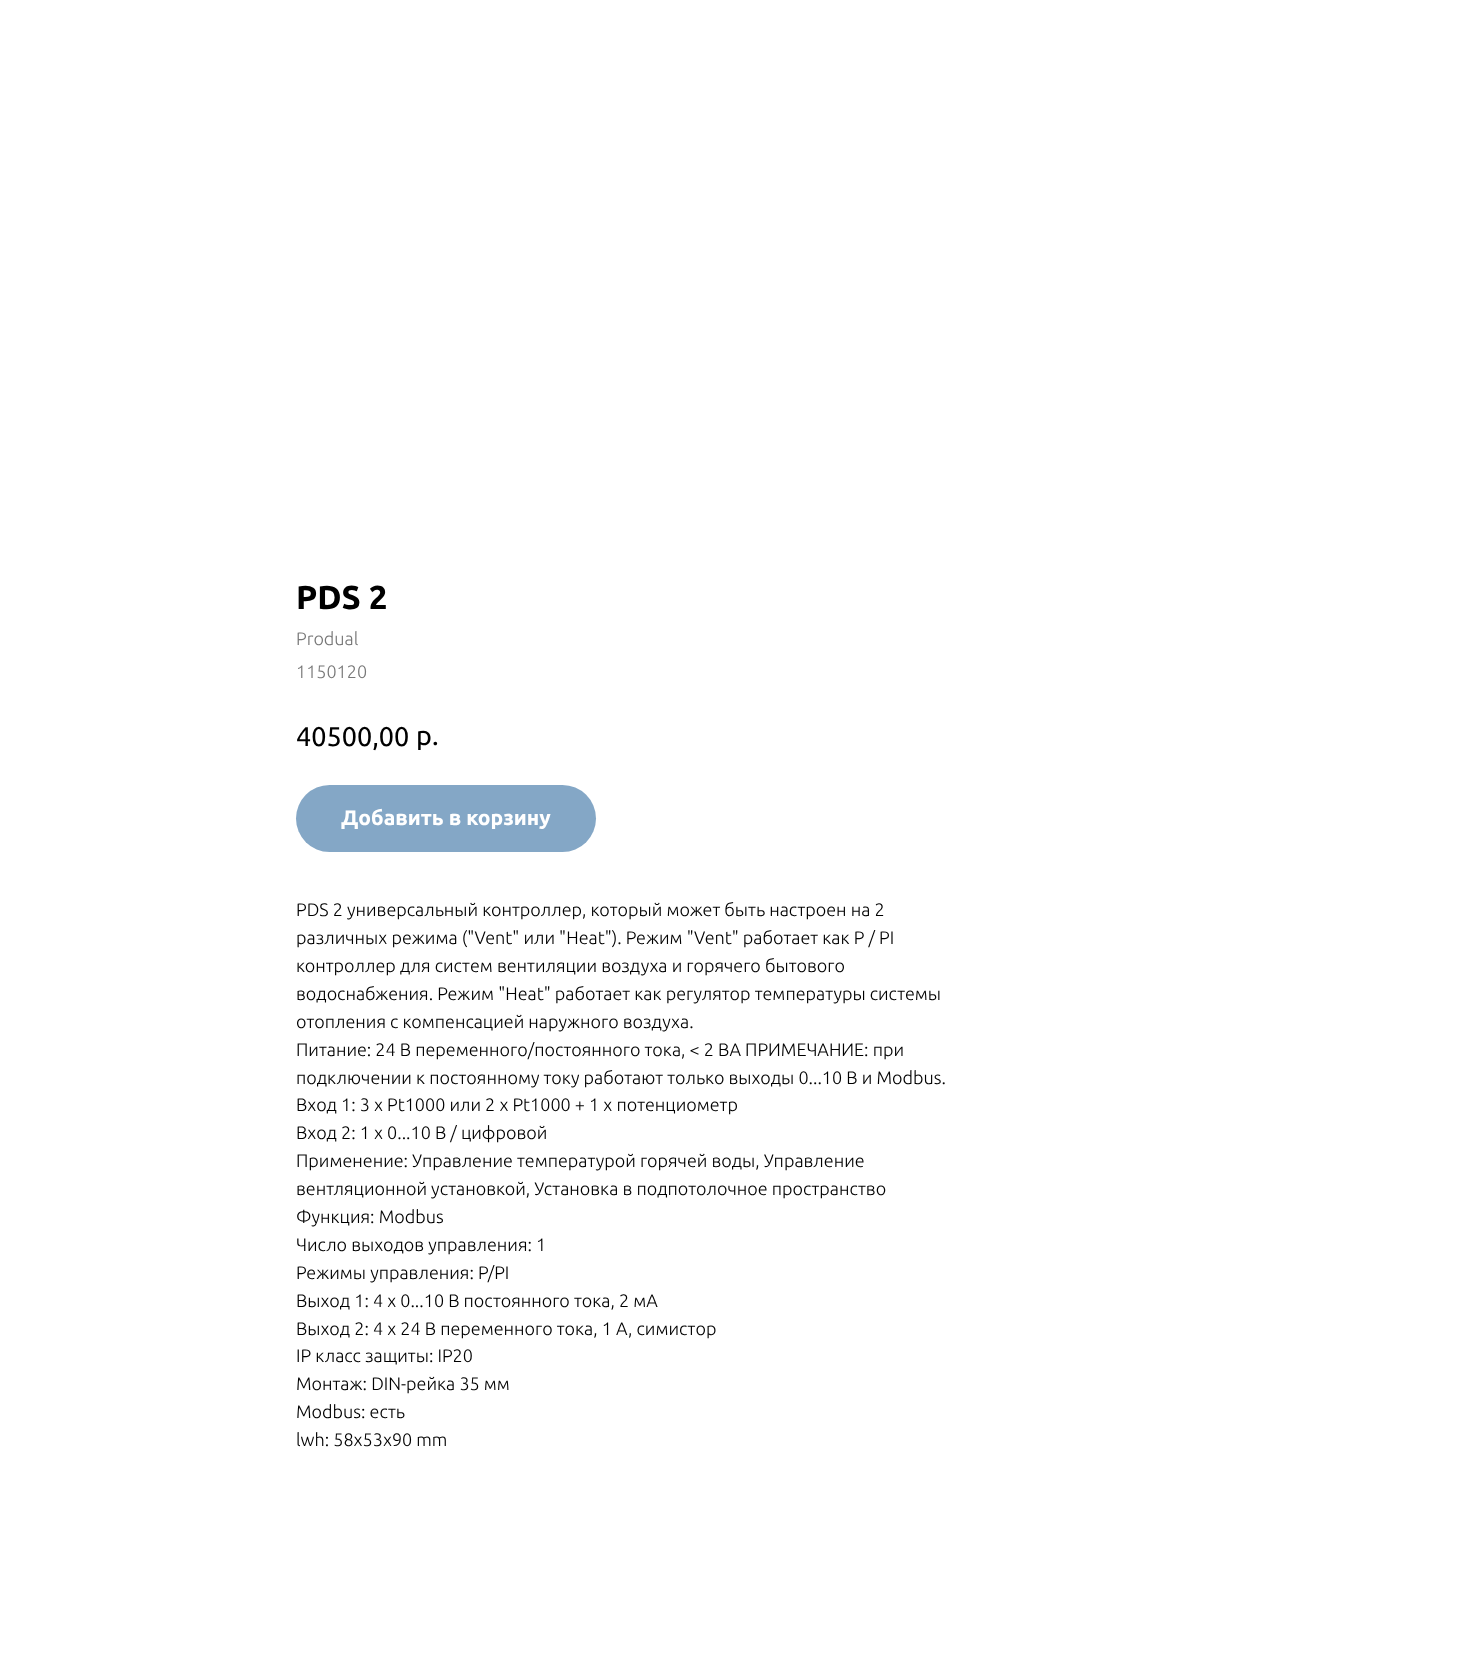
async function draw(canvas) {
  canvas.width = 1460;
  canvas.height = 1673;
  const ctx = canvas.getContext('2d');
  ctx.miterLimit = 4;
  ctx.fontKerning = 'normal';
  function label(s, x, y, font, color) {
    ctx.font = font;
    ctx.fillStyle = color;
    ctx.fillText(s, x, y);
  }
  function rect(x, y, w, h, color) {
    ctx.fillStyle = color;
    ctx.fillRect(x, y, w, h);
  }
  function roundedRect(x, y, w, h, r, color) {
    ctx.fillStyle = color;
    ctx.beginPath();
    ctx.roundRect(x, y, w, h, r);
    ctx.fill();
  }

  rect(0, 0, 1460, 1673, '#fff');
  label('PDS 2', 296, 609, 'bold 33px Ubuntu', '#000');
  label('Produal', 296, 645, '300 18px Ubuntu', '#777');
  label('1150120', 296, 678, '300 18px Ubuntu', '#777');
  label('40500,00', 296, 746, '27px Ubuntu', '#000');
  label('р.', 416, 745, '27px Ubuntu', '#000');
  roundedRect(296, 785, 300, 67, 33.5, '#84a7c6');
  label('Добавить в корзину', 341, 825, 'bold 21px Ubuntu', '#fff');
  label('PDS 2 универсальный контроллер, который может быть настроен на 2', 296, 916, '300 18px Ubuntu', '#000');
  label('различных режима ("Vent" или "Heat"). Режим "Vent" работает как P / PI', 296, 944, '300 18px Ubuntu', '#000');
  label('контроллер для систем вентиляции воздуха и горячего бытового', 296, 972, '300 18px Ubuntu', '#000');
  label('водоснабжения. Режим "Heat" работает как регулятор температуры системы', 296, 1000, '300 18px Ubuntu', '#000');
  label('отопления с компенсацией наружного воздуха.', 296, 1028, '300 18px Ubuntu', '#000');
  label('Питание: 24 В переменного/постоянного тока, < 2 ВА ПРИМЕЧАНИЕ: при', 296, 1056, '300 18px Ubuntu', '#000');
  label('подключении к постоянному току работают только выходы 0...10 В и Modbus.', 296, 1084, '300 18px Ubuntu', '#000');
  label('Вход 1: 3 x Pt1000 или 2 x Pt1000 + 1 x потенциометр', 296, 1111, '300 18px Ubuntu', '#000');
  label('Вход 2: 1 x 0...10 В / цифровой', 296, 1139, '300 18px Ubuntu', '#000');
  label('Применение: Управление температурой горячей воды, Управление', 296, 1167, '300 18px Ubuntu', '#000');
  label('вентляционной установкой, Установка в подпотолочное пространство', 296, 1195, '300 18px Ubuntu', '#000');
  label('Функция: Modbus', 296, 1223, '300 18px Ubuntu', '#000');
  label('Число выходов управления: 1', 296, 1251, '300 18px Ubuntu', '#000');
  label('Режимы управления: P/PI', 296, 1279, '300 18px Ubuntu', '#000');
  label('Выход 1: 4 x 0...10 В постоянного тока, 2 мA', 296, 1307, '300 18px Ubuntu', '#000');
  label('Выход 2: 4 x 24 В переменного тока, 1 A, симистор', 296, 1335, '300 18px Ubuntu', '#000');
  label('IP класс защиты: IP20', 296, 1362, '300 18px Ubuntu', '#000');
  label('Монтаж: DIN-рейка 35 мм', 296, 1390, '300 18px Ubuntu', '#000');
  label('Modbus: есть', 296, 1418, '300 18px Ubuntu', '#000');
  label('lwh: 58x53x90 mm', 296, 1446, '300 18px Ubuntu', '#000');
}

draw(document.querySelector('canvas'));
